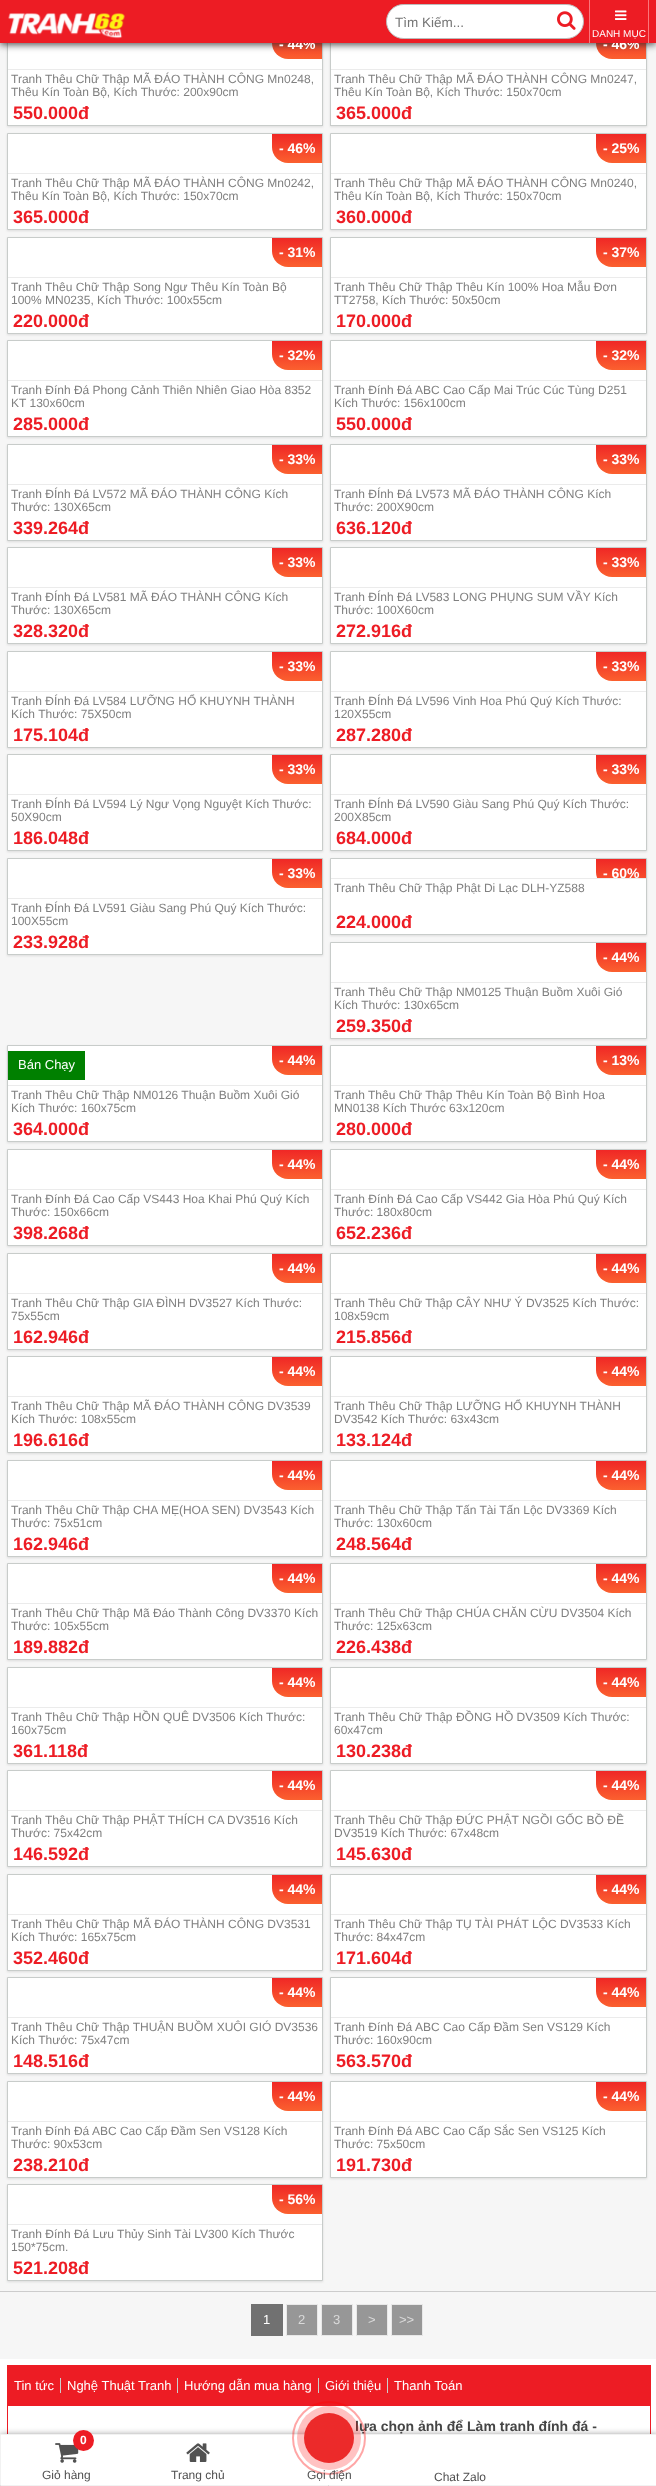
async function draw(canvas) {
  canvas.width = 656;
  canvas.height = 2486;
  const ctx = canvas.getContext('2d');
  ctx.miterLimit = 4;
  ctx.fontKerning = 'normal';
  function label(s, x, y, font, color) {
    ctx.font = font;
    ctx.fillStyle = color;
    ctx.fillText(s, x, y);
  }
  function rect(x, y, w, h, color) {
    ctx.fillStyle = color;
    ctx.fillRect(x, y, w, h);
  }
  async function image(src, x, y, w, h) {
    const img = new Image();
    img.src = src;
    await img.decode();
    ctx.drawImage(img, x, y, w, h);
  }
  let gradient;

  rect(0, 0, 656, 2486, '#fff');
  rect(0, 43, 656, 2316, '#f6f6f6');
  ctx.fillStyle = '#0000001a';
  ctx.filter = 'blur(1px)';
  ctx.beginPath();
  ctx.rect(7, 30, 316, 97);
  ctx.fill();
  ctx.filter = 'none';
  rect(8, 43, 314, 82, '#fff');
  ctx.strokeStyle = '#c8ccca';
  ctx.strokeRect(7.5, 29.5, 315, 96);
  gradient = ctx.createLinearGradient(297, 24, 297, 59);
  gradient.addColorStop(0, '#ed1c24');
  gradient.addColorStop(1, '#fb602f');
  ctx.fillStyle = gradient;
  ctx.beginPath();
  ctx.roundRect(272, 30, 50, 29, [0, 0, 0, 16]);
  ctx.fill();
  ctx.fillStyle = '#0000001a';
  ctx.filter = 'blur(1px)';
  ctx.beginPath();
  ctx.rect(330, 30, 317, 97);
  ctx.fill();
  ctx.filter = 'none';
  rect(331, 43, 315, 82, '#fff');
  ctx.strokeRect(330.5, 29.5, 316, 96);
  gradient = ctx.createLinearGradient(621, 24, 621, 59);
  gradient.addColorStop(0, '#ed1c24');
  gradient.addColorStop(1, '#fb602f');
  ctx.fillStyle = gradient;
  ctx.beginPath();
  ctx.roundRect(596, 30, 50, 29, [0, 0, 0, 16]);
  ctx.fill();
  ctx.fillStyle = '#323232d1';
  ctx.filter = 'blur(3.5px)';
  ctx.beginPath();
  ctx.rect(0, 2, 656, 43);
  ctx.fill();
  ctx.filter = 'none';
  label('- 44%', 279, 49, 'bold 14px Liberation Sans', '#fff');
  label('- 46%', 603, 49, 'bold 14px Liberation Sans', '#fff');
  rect(0, 0, 656, 43, '#ed1c24');
  await image('assets/img1.png', 8, 13, 117, 26);
  ctx.fillStyle = '#fff';
  ctx.beginPath();
  ctx.roundRect(386.5, 4.5, 197, 34, 17);
  ctx.fill();
  ctx.strokeStyle = '#bcbbbb';
  ctx.stroke();
  label('Tìm Kiếm...', 395, 27, '13.5px Liberation Sans', '#757575');
  await image('assets/img2.png', 557, 11, 19, 19);
  rect(648, 0, 1, 43, '#fb757b');
  rect(589, 0, 1, 43, '#fb757b');
  await image('assets/img3.png', 615, 10, 12, 10);
  label('DANH MỤC', 592, 37, '10px Liberation Sans', '#fff');
  ctx.strokeStyle = '#ed1c24';
  ctx.strokeRect(7.5, 2365.5, 643, 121);
  ctx.fillStyle = '#000';
  ctx.filter = 'blur(5px)';
  ctx.beginPath();
  ctx.rect(0, 2438, 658, 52);
  ctx.fill();
  ctx.filter = 'none';
  ctx.fillStyle = '#fff';
  ctx.beginPath();
  ctx.rect(0.5, 2434.5, 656, 51);
  ctx.fill();
  ctx.strokeStyle = '#f2f2f2';
  ctx.stroke();
  await image('assets/img4.png', 55, 2443, 24, 20);
  ctx.fillStyle = '#ed1c24';
  ctx.beginPath();
  ctx.arc(83.5, 2440.5, 10.5, 0, 2 * Math.PI);
  ctx.fill();
  label('0', 80, 2444, 'bold 12px Liberation Sans', '#fff');
  label('Giỏ hàng', 42, 2479, '12px Liberation Sans', '#515151');
  await image('assets/img5.png', 186, 2443, 24, 19);
  label('Trang chủ', 171, 2479, '12px Liberation Sans', '#515151');
  ctx.fillStyle = '#e73838';
  ctx.beginPath();
  ctx.arc(329, 2438, 25, 0, 2 * Math.PI);
  ctx.fill();
  rect(8, 2366, 642, 40, '#ed1c24');
  label('lựa chọn ảnh để Làm tranh đính đá -', 355, 2431, 'bold 14px Liberation Sans', '#454545');
  ctx.beginPath();
  ctx.arc(329, 2438, 36, 0, 2 * Math.PI);
  ctx.strokeStyle = '#ff000059';
  ctx.lineWidth = 2;
  ctx.stroke();
  ctx.fillStyle = '#ff00003d';
  ctx.beginPath();
  ctx.arc(329, 2438, 32, 0, 2 * Math.PI);
  ctx.fill();
  label('Gọi điện', 307, 2479, '12px Liberation Sans', '#515151');
  label('Chat Zalo', 434, 2481, '12px Liberation Sans', '#515151');
  rect(8, 69, 314, 1, '#ebebeb');
  label('Tranh Thêu Chữ Thập MÃ ĐÁO THÀNH CÔNG Mn0248,', 11, 83, '12px Liberation Sans', '#808080');
  label('Thêu Kín Toàn Bộ, Kích Thước: 200x90cm', 11, 96, '12px Liberation Sans', '#808080');
  label('550.000đ', 13, 119, 'bold 18px Liberation Sans', '#ed1c24');
  rect(331, 69, 315, 1, '#ebebeb');
  label('Tranh Thêu Chữ Thập MÃ ĐÁO THÀNH CÔNG Mn0247,', 334, 83, '12px Liberation Sans', '#808080');
  label('Thêu Kín Toàn Bộ, Kích Thước: 150x70cm', 334, 96, '12px Liberation Sans', '#808080');
  label('365.000đ', 336, 119, 'bold 18px Liberation Sans', '#ed1c24');
  ctx.fillStyle = '#0000001a';
  ctx.filter = 'blur(1px)';
  ctx.beginPath();
  ctx.rect(7, 134, 316, 97);
  ctx.fill();
  ctx.filter = 'none';
  ctx.fillStyle = '#fff';
  ctx.beginPath();
  ctx.rect(7.5, 133.5, 315, 96);
  ctx.fill();
  ctx.strokeStyle = '#c8ccca';
  ctx.lineWidth = 1;
  ctx.stroke();
  rect(8, 173, 314, 1, '#ebebeb');
  gradient = ctx.createLinearGradient(297, 128, 297, 163);
  gradient.addColorStop(0, '#ed1c24');
  gradient.addColorStop(1, '#fb602f');
  ctx.fillStyle = gradient;
  ctx.beginPath();
  ctx.roundRect(272, 134, 50, 29, [0, 0, 0, 16]);
  ctx.fill();
  label('- 46%', 279, 153, 'bold 14px Liberation Sans', '#fff');
  label('Tranh Thêu Chữ Thập MÃ ĐÁO THÀNH CÔNG Mn0242,', 11, 187, '12px Liberation Sans', '#808080');
  label('Thêu Kín Toàn Bộ, Kích Thước: 150x70cm', 11, 200, '12px Liberation Sans', '#808080');
  label('365.000đ', 13, 223, 'bold 18px Liberation Sans', '#ed1c24');
  ctx.fillStyle = '#0000001a';
  ctx.filter = 'blur(1px)';
  ctx.beginPath();
  ctx.rect(330, 134, 317, 97);
  ctx.fill();
  ctx.filter = 'none';
  ctx.fillStyle = '#fff';
  ctx.beginPath();
  ctx.rect(330.5, 133.5, 316, 96);
  ctx.fill();
  ctx.stroke();
  rect(331, 173, 315, 1, '#ebebeb');
  gradient = ctx.createLinearGradient(621, 128, 621, 163);
  gradient.addColorStop(0, '#ed1c24');
  gradient.addColorStop(1, '#fb602f');
  ctx.fillStyle = gradient;
  ctx.beginPath();
  ctx.roundRect(596, 134, 50, 29, [0, 0, 0, 16]);
  ctx.fill();
  label('- 25%', 603, 153, 'bold 14px Liberation Sans', '#fff');
  label('Tranh Thêu Chữ Thập MÃ ĐÁO THÀNH CÔNG Mn0240,', 334, 187, '12px Liberation Sans', '#808080');
  label('Thêu Kín Toàn Bộ, Kích Thước: 150x70cm', 334, 200, '12px Liberation Sans', '#808080');
  label('360.000đ', 336, 223, 'bold 18px Liberation Sans', '#ed1c24');
  ctx.fillStyle = '#0000001a';
  ctx.filter = 'blur(1px)';
  ctx.beginPath();
  ctx.rect(7, 238, 316, 97);
  ctx.fill();
  ctx.filter = 'none';
  ctx.fillStyle = '#fff';
  ctx.beginPath();
  ctx.rect(7.5, 237.5, 315, 96);
  ctx.fill();
  ctx.stroke();
  rect(8, 277, 314, 1, '#ebebeb');
  gradient = ctx.createLinearGradient(297, 232, 297, 267);
  gradient.addColorStop(0, '#ed1c24');
  gradient.addColorStop(1, '#fb602f');
  ctx.fillStyle = gradient;
  ctx.beginPath();
  ctx.roundRect(272, 238, 50, 29, [0, 0, 0, 16]);
  ctx.fill();
  label('- 31%', 279, 257, 'bold 14px Liberation Sans', '#fff');
  label('Tranh Thêu Chữ Thập Song Ngư Thêu Kín Toàn Bộ', 11, 291, '12px Liberation Sans', '#808080');
  label('100% MN0235, Kích Thước: 100x55cm', 11, 304, '12px Liberation Sans', '#808080');
  label('220.000đ', 13, 327, 'bold 18px Liberation Sans', '#ed1c24');
  ctx.fillStyle = '#0000001a';
  ctx.filter = 'blur(1px)';
  ctx.beginPath();
  ctx.rect(330, 238, 317, 97);
  ctx.fill();
  ctx.filter = 'none';
  ctx.fillStyle = '#fff';
  ctx.beginPath();
  ctx.rect(330.5, 237.5, 316, 96);
  ctx.fill();
  ctx.stroke();
  rect(331, 277, 315, 1, '#ebebeb');
  gradient = ctx.createLinearGradient(621, 232, 621, 267);
  gradient.addColorStop(0, '#ed1c24');
  gradient.addColorStop(1, '#fb602f');
  ctx.fillStyle = gradient;
  ctx.beginPath();
  ctx.roundRect(596, 238, 50, 29, [0, 0, 0, 16]);
  ctx.fill();
  label('- 37%', 603, 257, 'bold 14px Liberation Sans', '#fff');
  label('Tranh Thêu Chữ Thập Thêu Kín 100% Hoa Mẫu Đơn', 334, 291, '12px Liberation Sans', '#808080');
  label('TT2758, Kích Thước: 50x50cm', 334, 304, '12px Liberation Sans', '#808080');
  label('170.000đ', 336, 327, 'bold 18px Liberation Sans', '#ed1c24');
  ctx.fillStyle = '#0000001a';
  ctx.filter = 'blur(1px)';
  ctx.beginPath();
  ctx.rect(7, 341, 316, 97);
  ctx.fill();
  ctx.filter = 'none';
  ctx.fillStyle = '#fff';
  ctx.beginPath();
  ctx.rect(7.5, 340.5, 315, 96);
  ctx.fill();
  ctx.stroke();
  rect(8, 380, 314, 1, '#ebebeb');
  gradient = ctx.createLinearGradient(297, 335, 297, 370);
  gradient.addColorStop(0, '#ed1c24');
  gradient.addColorStop(1, '#fb602f');
  ctx.fillStyle = gradient;
  ctx.beginPath();
  ctx.roundRect(272, 341, 50, 29, [0, 0, 0, 16]);
  ctx.fill();
  label('- 32%', 279, 360, 'bold 14px Liberation Sans', '#fff');
  label('Tranh Đính Đá Phong Cảnh Thiên Nhiên Giao Hòa 8352', 11, 394, '12px Liberation Sans', '#808080');
  label('KT 130x60cm', 11, 407, '12px Liberation Sans', '#808080');
  label('285.000đ', 13, 430, 'bold 18px Liberation Sans', '#ed1c24');
  ctx.fillStyle = '#0000001a';
  ctx.filter = 'blur(1px)';
  ctx.beginPath();
  ctx.rect(330, 341, 317, 97);
  ctx.fill();
  ctx.filter = 'none';
  ctx.fillStyle = '#fff';
  ctx.beginPath();
  ctx.rect(330.5, 340.5, 316, 96);
  ctx.fill();
  ctx.stroke();
  rect(331, 380, 315, 1, '#ebebeb');
  gradient = ctx.createLinearGradient(621, 335, 621, 370);
  gradient.addColorStop(0, '#ed1c24');
  gradient.addColorStop(1, '#fb602f');
  ctx.fillStyle = gradient;
  ctx.beginPath();
  ctx.roundRect(596, 341, 50, 29, [0, 0, 0, 16]);
  ctx.fill();
  label('- 32%', 603, 360, 'bold 14px Liberation Sans', '#fff');
  label('Tranh Đính Đá ABC Cao Cấp Mai Trúc Cúc Tùng D251', 334, 394, '12px Liberation Sans', '#808080');
  label('Kích Thước: 156x100cm', 334, 407, '12px Liberation Sans', '#808080');
  label('550.000đ', 336, 430, 'bold 18px Liberation Sans', '#ed1c24');
  ctx.fillStyle = '#0000001a';
  ctx.filter = 'blur(1px)';
  ctx.beginPath();
  ctx.rect(7, 445, 316, 97);
  ctx.fill();
  ctx.filter = 'none';
  ctx.fillStyle = '#fff';
  ctx.beginPath();
  ctx.rect(7.5, 444.5, 315, 96);
  ctx.fill();
  ctx.stroke();
  rect(8, 484, 314, 1, '#ebebeb');
  gradient = ctx.createLinearGradient(297, 439, 297, 474);
  gradient.addColorStop(0, '#ed1c24');
  gradient.addColorStop(1, '#fb602f');
  ctx.fillStyle = gradient;
  ctx.beginPath();
  ctx.roundRect(272, 445, 50, 29, [0, 0, 0, 16]);
  ctx.fill();
  label('- 33%', 279, 464, 'bold 14px Liberation Sans', '#fff');
  label('Tranh ĐÍnh Đá LV572 MÃ ĐÁO THÀNH CÔNG Kích', 11, 498, '12px Liberation Sans', '#808080');
  label('Thước: 130X65cm', 11, 511, '12px Liberation Sans', '#808080');
  label('339.264đ', 13, 534, 'bold 18px Liberation Sans', '#ed1c24');
  ctx.fillStyle = '#0000001a';
  ctx.filter = 'blur(1px)';
  ctx.beginPath();
  ctx.rect(330, 445, 317, 97);
  ctx.fill();
  ctx.filter = 'none';
  ctx.fillStyle = '#fff';
  ctx.beginPath();
  ctx.rect(330.5, 444.5, 316, 96);
  ctx.fill();
  ctx.stroke();
  rect(331, 484, 315, 1, '#ebebeb');
  gradient = ctx.createLinearGradient(621, 439, 621, 474);
  gradient.addColorStop(0, '#ed1c24');
  gradient.addColorStop(1, '#fb602f');
  ctx.fillStyle = gradient;
  ctx.beginPath();
  ctx.roundRect(596, 445, 50, 29, [0, 0, 0, 16]);
  ctx.fill();
  label('- 33%', 603, 464, 'bold 14px Liberation Sans', '#fff');
  label('Tranh ĐÍnh Đá LV573 MÃ ĐÁO THÀNH CÔNG Kích', 334, 498, '12px Liberation Sans', '#808080');
  label('Thước: 200X90cm', 334, 511, '12px Liberation Sans', '#808080');
  label('636.120đ', 336, 534, 'bold 18px Liberation Sans', '#ed1c24');
  ctx.fillStyle = '#0000001a';
  ctx.filter = 'blur(1px)';
  ctx.beginPath();
  ctx.rect(7, 548, 316, 97);
  ctx.fill();
  ctx.filter = 'none';
  ctx.fillStyle = '#fff';
  ctx.beginPath();
  ctx.rect(7.5, 547.5, 315, 96);
  ctx.fill();
  ctx.stroke();
  rect(8, 587, 314, 1, '#ebebeb');
  gradient = ctx.createLinearGradient(297, 542, 297, 577);
  gradient.addColorStop(0, '#ed1c24');
  gradient.addColorStop(1, '#fb602f');
  ctx.fillStyle = gradient;
  ctx.beginPath();
  ctx.roundRect(272, 548, 50, 29, [0, 0, 0, 16]);
  ctx.fill();
  label('- 33%', 279, 567, 'bold 14px Liberation Sans', '#fff');
  label('Tranh ĐÍnh Đá LV581 MÃ ĐÁO THÀNH CÔNG Kích', 11, 601, '12px Liberation Sans', '#808080');
  label('Thước: 130X65cm', 11, 614, '12px Liberation Sans', '#808080');
  label('328.320đ', 13, 637, 'bold 18px Liberation Sans', '#ed1c24');
  ctx.fillStyle = '#0000001a';
  ctx.filter = 'blur(1px)';
  ctx.beginPath();
  ctx.rect(330, 548, 317, 97);
  ctx.fill();
  ctx.filter = 'none';
  ctx.fillStyle = '#fff';
  ctx.beginPath();
  ctx.rect(330.5, 547.5, 316, 96);
  ctx.fill();
  ctx.stroke();
  rect(331, 587, 315, 1, '#ebebeb');
  gradient = ctx.createLinearGradient(621, 542, 621, 577);
  gradient.addColorStop(0, '#ed1c24');
  gradient.addColorStop(1, '#fb602f');
  ctx.fillStyle = gradient;
  ctx.beginPath();
  ctx.roundRect(596, 548, 50, 29, [0, 0, 0, 16]);
  ctx.fill();
  label('- 33%', 603, 567, 'bold 14px Liberation Sans', '#fff');
  label('Tranh ĐÍnh Đá LV583 LONG PHỤNG SUM VẦY Kích', 334, 601, '12px Liberation Sans', '#808080');
  label('Thước: 100X60cm', 334, 614, '12px Liberation Sans', '#808080');
  label('272.916đ', 336, 637, 'bold 18px Liberation Sans', '#ed1c24');
  ctx.fillStyle = '#0000001a';
  ctx.filter = 'blur(1px)';
  ctx.beginPath();
  ctx.rect(7, 652, 316, 97);
  ctx.fill();
  ctx.filter = 'none';
  ctx.fillStyle = '#fff';
  ctx.beginPath();
  ctx.rect(7.5, 651.5, 315, 96);
  ctx.fill();
  ctx.stroke();
  rect(8, 691, 314, 1, '#ebebeb');
  gradient = ctx.createLinearGradient(297, 646, 297, 681);
  gradient.addColorStop(0, '#ed1c24');
  gradient.addColorStop(1, '#fb602f');
  ctx.fillStyle = gradient;
  ctx.beginPath();
  ctx.roundRect(272, 652, 50, 29, [0, 0, 0, 16]);
  ctx.fill();
  label('- 33%', 279, 671, 'bold 14px Liberation Sans', '#fff');
  label('Tranh ĐÍnh Đá LV584 LƯỠNG HỔ KHUYNH THÀNH', 11, 705, '12px Liberation Sans', '#808080');
  label('Kích Thước: 75X50cm', 11, 718, '12px Liberation Sans', '#808080');
  label('175.104đ', 13, 741, 'bold 18px Liberation Sans', '#ed1c24');
  ctx.fillStyle = '#0000001a';
  ctx.filter = 'blur(1px)';
  ctx.beginPath();
  ctx.rect(330, 652, 317, 97);
  ctx.fill();
  ctx.filter = 'none';
  ctx.fillStyle = '#fff';
  ctx.beginPath();
  ctx.rect(330.5, 651.5, 316, 96);
  ctx.fill();
  ctx.stroke();
  rect(331, 691, 315, 1, '#ebebeb');
  gradient = ctx.createLinearGradient(621, 646, 621, 681);
  gradient.addColorStop(0, '#ed1c24');
  gradient.addColorStop(1, '#fb602f');
  ctx.fillStyle = gradient;
  ctx.beginPath();
  ctx.roundRect(596, 652, 50, 29, [0, 0, 0, 16]);
  ctx.fill();
  label('- 33%', 603, 671, 'bold 14px Liberation Sans', '#fff');
  label('Tranh ĐÍnh Đá LV596 Vinh Hoa Phú Quý Kích Thước:', 334, 705, '12px Liberation Sans', '#808080');
  label('120X55cm', 334, 718, '12px Liberation Sans', '#808080');
  label('287.280đ', 336, 741, 'bold 18px Liberation Sans', '#ed1c24');
  ctx.fillStyle = '#0000001a';
  ctx.filter = 'blur(1px)';
  ctx.beginPath();
  ctx.rect(7, 755, 316, 97);
  ctx.fill();
  ctx.filter = 'none';
  ctx.fillStyle = '#fff';
  ctx.beginPath();
  ctx.rect(7.5, 754.5, 315, 96);
  ctx.fill();
  ctx.stroke();
  rect(8, 794, 314, 1, '#ebebeb');
  gradient = ctx.createLinearGradient(297, 749, 297, 784);
  gradient.addColorStop(0, '#ed1c24');
  gradient.addColorStop(1, '#fb602f');
  ctx.fillStyle = gradient;
  ctx.beginPath();
  ctx.roundRect(272, 755, 50, 29, [0, 0, 0, 16]);
  ctx.fill();
  label('- 33%', 279, 774, 'bold 14px Liberation Sans', '#fff');
  label('Tranh ĐÍnh Đá LV594 Lý Ngư Vọng Nguyệt Kích Thước:', 11, 808, '12px Liberation Sans', '#808080');
  label('50X90cm', 11, 821, '12px Liberation Sans', '#808080');
  label('186.048đ', 13, 844, 'bold 18px Liberation Sans', '#ed1c24');
  ctx.fillStyle = '#0000001a';
  ctx.filter = 'blur(1px)';
  ctx.beginPath();
  ctx.rect(330, 755, 317, 97);
  ctx.fill();
  ctx.filter = 'none';
  ctx.fillStyle = '#fff';
  ctx.beginPath();
  ctx.rect(330.5, 754.5, 316, 96);
  ctx.fill();
  ctx.stroke();
  rect(331, 794, 315, 1, '#ebebeb');
  gradient = ctx.createLinearGradient(621, 749, 621, 784);
  gradient.addColorStop(0, '#ed1c24');
  gradient.addColorStop(1, '#fb602f');
  ctx.fillStyle = gradient;
  ctx.beginPath();
  ctx.roundRect(596, 755, 50, 29, [0, 0, 0, 16]);
  ctx.fill();
  label('- 33%', 603, 774, 'bold 14px Liberation Sans', '#fff');
  label('Tranh ĐÍnh Đá LV590 Giàu Sang Phú Quý Kích Thước:', 334, 808, '12px Liberation Sans', '#808080');
  label('200X85cm', 334, 821, '12px Liberation Sans', '#808080');
  label('684.000đ', 336, 844, 'bold 18px Liberation Sans', '#ed1c24');
  ctx.fillStyle = '#0000001a';
  ctx.filter = 'blur(1px)';
  ctx.beginPath();
  ctx.rect(7, 859, 316, 97);
  ctx.fill();
  ctx.filter = 'none';
  ctx.fillStyle = '#fff';
  ctx.beginPath();
  ctx.rect(7.5, 858.5, 315, 96);
  ctx.fill();
  ctx.stroke();
  rect(8, 898, 314, 1, '#ebebeb');
  gradient = ctx.createLinearGradient(297, 853, 297, 888);
  gradient.addColorStop(0, '#ed1c24');
  gradient.addColorStop(1, '#fb602f');
  ctx.fillStyle = gradient;
  ctx.beginPath();
  ctx.roundRect(272, 859, 50, 29, [0, 0, 0, 16]);
  ctx.fill();
  label('- 33%', 279, 878, 'bold 14px Liberation Sans', '#fff');
  label('Tranh ĐÍnh Đá LV591 Giàu Sang Phú Quý Kích Thước:', 11, 912, '12px Liberation Sans', '#808080');
  label('100X55cm', 11, 925, '12px Liberation Sans', '#808080');
  label('233.928đ', 13, 948, 'bold 18px Liberation Sans', '#ed1c24');
  ctx.fillStyle = '#0000001a';
  ctx.filter = 'blur(1px)';
  ctx.beginPath();
  ctx.rect(330, 859, 317, 77);
  ctx.fill();
  ctx.filter = 'none';
  ctx.fillStyle = '#fff';
  ctx.beginPath();
  ctx.rect(330.5, 858.5, 316, 76);
  ctx.fill();
  ctx.stroke();
  rect(331, 878, 315, 1, '#ebebeb');
  ctx.save();
  ctx.beginPath();
  ctx.rect(331, 859, 315, 19);
  ctx.clip();
  gradient = ctx.createLinearGradient(621, 853, 621, 888);
  gradient.addColorStop(0, '#ed1c24');
  gradient.addColorStop(1, '#fb602f');
  ctx.fillStyle = gradient;
  ctx.beginPath();
  ctx.roundRect(596, 859, 50, 29, [0, 0, 0, 16]);
  ctx.fill();
  label('- 60%', 603, 878, 'bold 14px Liberation Sans', '#fff');
  ctx.restore();
  label('Tranh Thêu Chữ Thập Phật Di Lạc DLH-YZ588', 334, 892, '12px Liberation Sans', '#808080');
  label('224.000đ', 336, 928, 'bold 18px Liberation Sans', '#ed1c24');
  ctx.fillStyle = '#0000001a';
  ctx.filter = 'blur(1px)';
  ctx.beginPath();
  ctx.rect(330, 943, 317, 97);
  ctx.fill();
  ctx.filter = 'none';
  ctx.fillStyle = '#fff';
  ctx.beginPath();
  ctx.rect(330.5, 942.5, 316, 96);
  ctx.fill();
  ctx.stroke();
  rect(331, 982, 315, 1, '#ebebeb');
  gradient = ctx.createLinearGradient(621, 937, 621, 972);
  gradient.addColorStop(0, '#ed1c24');
  gradient.addColorStop(1, '#fb602f');
  ctx.fillStyle = gradient;
  ctx.beginPath();
  ctx.roundRect(596, 943, 50, 29, [0, 0, 0, 16]);
  ctx.fill();
  label('- 44%', 603, 962, 'bold 14px Liberation Sans', '#fff');
  label('Tranh Thêu Chữ Thập NM0125 Thuận Buồm Xuôi Gió', 334, 996, '12px Liberation Sans', '#808080');
  label('Kích Thước: 130x65cm', 334, 1009, '12px Liberation Sans', '#808080');
  label('259.350đ', 336, 1032, 'bold 18px Liberation Sans', '#ed1c24');
  ctx.fillStyle = '#0000001a';
  ctx.filter = 'blur(1px)';
  ctx.beginPath();
  ctx.rect(7, 1046, 316, 97);
  ctx.fill();
  ctx.filter = 'none';
  ctx.fillStyle = '#fff';
  ctx.beginPath();
  ctx.rect(7.5, 1045.5, 315, 96);
  ctx.fill();
  ctx.stroke();
  rect(8, 1085, 314, 1, '#ebebeb');
  rect(8, 1051, 77, 29, '#008000');
  label('Bán Chạy', 18, 1069, '13px Liberation Sans', '#fff');
  gradient = ctx.createLinearGradient(297, 1040, 297, 1075);
  gradient.addColorStop(0, '#ed1c24');
  gradient.addColorStop(1, '#fb602f');
  ctx.fillStyle = gradient;
  ctx.beginPath();
  ctx.roundRect(272, 1046, 50, 29, [0, 0, 0, 16]);
  ctx.fill();
  label('- 44%', 279, 1065, 'bold 14px Liberation Sans', '#fff');
  label('Tranh Thêu Chữ Thập NM0126 Thuận Buồm Xuôi Gió', 11, 1099, '12px Liberation Sans', '#808080');
  label('Kích Thước: 160x75cm', 11, 1112, '12px Liberation Sans', '#808080');
  label('364.000đ', 13, 1135, 'bold 18px Liberation Sans', '#ed1c24');
  ctx.fillStyle = '#0000001a';
  ctx.filter = 'blur(1px)';
  ctx.beginPath();
  ctx.rect(330, 1046, 317, 97);
  ctx.fill();
  ctx.filter = 'none';
  ctx.fillStyle = '#fff';
  ctx.beginPath();
  ctx.rect(330.5, 1045.5, 316, 96);
  ctx.fill();
  ctx.stroke();
  rect(331, 1085, 315, 1, '#ebebeb');
  gradient = ctx.createLinearGradient(621, 1040, 621, 1075);
  gradient.addColorStop(0, '#ed1c24');
  gradient.addColorStop(1, '#fb602f');
  ctx.fillStyle = gradient;
  ctx.beginPath();
  ctx.roundRect(596, 1046, 50, 29, [0, 0, 0, 16]);
  ctx.fill();
  label('- 13%', 603, 1065, 'bold 14px Liberation Sans', '#fff');
  label('Tranh Thêu Chữ Thập Thêu Kín Toàn Bộ Bình Hoa', 334, 1099, '12px Liberation Sans', '#808080');
  label('MN0138 Kích Thước 63x120cm', 334, 1112, '12px Liberation Sans', '#808080');
  label('280.000đ', 336, 1135, 'bold 18px Liberation Sans', '#ed1c24');
  ctx.fillStyle = '#0000001a';
  ctx.filter = 'blur(1px)';
  ctx.beginPath();
  ctx.rect(7, 1150, 316, 97);
  ctx.fill();
  ctx.filter = 'none';
  ctx.fillStyle = '#fff';
  ctx.beginPath();
  ctx.rect(7.5, 1149.5, 315, 96);
  ctx.fill();
  ctx.stroke();
  rect(8, 1189, 314, 1, '#ebebeb');
  gradient = ctx.createLinearGradient(297, 1144, 297, 1179);
  gradient.addColorStop(0, '#ed1c24');
  gradient.addColorStop(1, '#fb602f');
  ctx.fillStyle = gradient;
  ctx.beginPath();
  ctx.roundRect(272, 1150, 50, 29, [0, 0, 0, 16]);
  ctx.fill();
  label('- 44%', 279, 1169, 'bold 14px Liberation Sans', '#fff');
  label('Tranh Đính Đá Cao Cấp VS443 Hoa Khai Phú Quý Kích', 11, 1203, '12px Liberation Sans', '#808080');
  label('Thước: 150x66cm', 11, 1216, '12px Liberation Sans', '#808080');
  label('398.268đ', 13, 1239, 'bold 18px Liberation Sans', '#ed1c24');
  ctx.fillStyle = '#0000001a';
  ctx.filter = 'blur(1px)';
  ctx.beginPath();
  ctx.rect(330, 1150, 317, 97);
  ctx.fill();
  ctx.filter = 'none';
  ctx.fillStyle = '#fff';
  ctx.beginPath();
  ctx.rect(330.5, 1149.5, 316, 96);
  ctx.fill();
  ctx.stroke();
  rect(331, 1189, 315, 1, '#ebebeb');
  gradient = ctx.createLinearGradient(621, 1144, 621, 1179);
  gradient.addColorStop(0, '#ed1c24');
  gradient.addColorStop(1, '#fb602f');
  ctx.fillStyle = gradient;
  ctx.beginPath();
  ctx.roundRect(596, 1150, 50, 29, [0, 0, 0, 16]);
  ctx.fill();
  label('- 44%', 603, 1169, 'bold 14px Liberation Sans', '#fff');
  label('Tranh Đính Đá Cao Cấp VS442 Gia Hòa Phú Quý Kích', 334, 1203, '12px Liberation Sans', '#808080');
  label('Thước: 180x80cm', 334, 1216, '12px Liberation Sans', '#808080');
  label('652.236đ', 336, 1239, 'bold 18px Liberation Sans', '#ed1c24');
  ctx.fillStyle = '#0000001a';
  ctx.filter = 'blur(1px)';
  ctx.beginPath();
  ctx.rect(7, 1254, 316, 97);
  ctx.fill();
  ctx.filter = 'none';
  ctx.fillStyle = '#fff';
  ctx.beginPath();
  ctx.rect(7.5, 1253.5, 315, 96);
  ctx.fill();
  ctx.stroke();
  rect(8, 1293, 314, 1, '#ebebeb');
  gradient = ctx.createLinearGradient(297, 1248, 297, 1283);
  gradient.addColorStop(0, '#ed1c24');
  gradient.addColorStop(1, '#fb602f');
  ctx.fillStyle = gradient;
  ctx.beginPath();
  ctx.roundRect(272, 1254, 50, 29, [0, 0, 0, 16]);
  ctx.fill();
  label('- 44%', 279, 1273, 'bold 14px Liberation Sans', '#fff');
  label('Tranh Thêu Chữ Thập GIA ĐÌNH DV3527 Kích Thước:', 11, 1307, '12px Liberation Sans', '#808080');
  label('75x55cm', 11, 1320, '12px Liberation Sans', '#808080');
  label('162.946đ', 13, 1343, 'bold 18px Liberation Sans', '#ed1c24');
  ctx.fillStyle = '#0000001a';
  ctx.filter = 'blur(1px)';
  ctx.beginPath();
  ctx.rect(330, 1254, 317, 97);
  ctx.fill();
  ctx.filter = 'none';
  ctx.fillStyle = '#fff';
  ctx.beginPath();
  ctx.rect(330.5, 1253.5, 316, 96);
  ctx.fill();
  ctx.stroke();
  rect(331, 1293, 315, 1, '#ebebeb');
  gradient = ctx.createLinearGradient(621, 1248, 621, 1283);
  gradient.addColorStop(0, '#ed1c24');
  gradient.addColorStop(1, '#fb602f');
  ctx.fillStyle = gradient;
  ctx.beginPath();
  ctx.roundRect(596, 1254, 50, 29, [0, 0, 0, 16]);
  ctx.fill();
  label('- 44%', 603, 1273, 'bold 14px Liberation Sans', '#fff');
  label('Tranh Thêu Chữ Thập CÂY NHƯ Ý DV3525 Kích Thước:', 334, 1307, '12px Liberation Sans', '#808080');
  label('108x59cm', 334, 1320, '12px Liberation Sans', '#808080');
  label('215.856đ', 336, 1343, 'bold 18px Liberation Sans', '#ed1c24');
  ctx.fillStyle = '#0000001a';
  ctx.filter = 'blur(1px)';
  ctx.beginPath();
  ctx.rect(7, 1357, 316, 97);
  ctx.fill();
  ctx.filter = 'none';
  ctx.fillStyle = '#fff';
  ctx.beginPath();
  ctx.rect(7.5, 1356.5, 315, 96);
  ctx.fill();
  ctx.stroke();
  rect(8, 1396, 314, 1, '#ebebeb');
  gradient = ctx.createLinearGradient(297, 1351, 297, 1386);
  gradient.addColorStop(0, '#ed1c24');
  gradient.addColorStop(1, '#fb602f');
  ctx.fillStyle = gradient;
  ctx.beginPath();
  ctx.roundRect(272, 1357, 50, 29, [0, 0, 0, 16]);
  ctx.fill();
  label('- 44%', 279, 1376, 'bold 14px Liberation Sans', '#fff');
  label('Tranh Thêu Chữ Thập MÃ ĐÁO THÀNH CÔNG DV3539', 11, 1410, '12px Liberation Sans', '#808080');
  label('Kích Thước: 108x55cm', 11, 1423, '12px Liberation Sans', '#808080');
  label('196.616đ', 13, 1446, 'bold 18px Liberation Sans', '#ed1c24');
  ctx.fillStyle = '#0000001a';
  ctx.filter = 'blur(1px)';
  ctx.beginPath();
  ctx.rect(330, 1357, 317, 97);
  ctx.fill();
  ctx.filter = 'none';
  ctx.fillStyle = '#fff';
  ctx.beginPath();
  ctx.rect(330.5, 1356.5, 316, 96);
  ctx.fill();
  ctx.stroke();
  rect(331, 1396, 315, 1, '#ebebeb');
  gradient = ctx.createLinearGradient(621, 1351, 621, 1386);
  gradient.addColorStop(0, '#ed1c24');
  gradient.addColorStop(1, '#fb602f');
  ctx.fillStyle = gradient;
  ctx.beginPath();
  ctx.roundRect(596, 1357, 50, 29, [0, 0, 0, 16]);
  ctx.fill();
  label('- 44%', 603, 1376, 'bold 14px Liberation Sans', '#fff');
  label('Tranh Thêu Chữ Thập LƯỠNG HỔ KHUYNH THÀNH', 334, 1410, '12px Liberation Sans', '#808080');
  label('DV3542 Kích Thước: 63x43cm', 334, 1423, '12px Liberation Sans', '#808080');
  label('133.124đ', 336, 1446, 'bold 18px Liberation Sans', '#ed1c24');
  ctx.fillStyle = '#0000001a';
  ctx.filter = 'blur(1px)';
  ctx.beginPath();
  ctx.rect(7, 1461, 316, 97);
  ctx.fill();
  ctx.filter = 'none';
  ctx.fillStyle = '#fff';
  ctx.beginPath();
  ctx.rect(7.5, 1460.5, 315, 96);
  ctx.fill();
  ctx.stroke();
  rect(8, 1500, 314, 1, '#ebebeb');
  gradient = ctx.createLinearGradient(297, 1455, 297, 1490);
  gradient.addColorStop(0, '#ed1c24');
  gradient.addColorStop(1, '#fb602f');
  ctx.fillStyle = gradient;
  ctx.beginPath();
  ctx.roundRect(272, 1461, 50, 29, [0, 0, 0, 16]);
  ctx.fill();
  label('- 44%', 279, 1480, 'bold 14px Liberation Sans', '#fff');
  label('Tranh Thêu Chữ Thập CHA MẸ(HOA SEN) DV3543 Kích', 11, 1514, '12px Liberation Sans', '#808080');
  label('Thước: 75x51cm', 11, 1527, '12px Liberation Sans', '#808080');
  label('162.946đ', 13, 1550, 'bold 18px Liberation Sans', '#ed1c24');
  ctx.fillStyle = '#0000001a';
  ctx.filter = 'blur(1px)';
  ctx.beginPath();
  ctx.rect(330, 1461, 317, 97);
  ctx.fill();
  ctx.filter = 'none';
  ctx.fillStyle = '#fff';
  ctx.beginPath();
  ctx.rect(330.5, 1460.5, 316, 96);
  ctx.fill();
  ctx.stroke();
  rect(331, 1500, 315, 1, '#ebebeb');
  gradient = ctx.createLinearGradient(621, 1455, 621, 1490);
  gradient.addColorStop(0, '#ed1c24');
  gradient.addColorStop(1, '#fb602f');
  ctx.fillStyle = gradient;
  ctx.beginPath();
  ctx.roundRect(596, 1461, 50, 29, [0, 0, 0, 16]);
  ctx.fill();
  label('- 44%', 603, 1480, 'bold 14px Liberation Sans', '#fff');
  label('Tranh Thêu Chữ Thập Tấn Tài Tấn Lộc DV3369 Kích', 334, 1514, '12px Liberation Sans', '#808080');
  label('Thước: 130x60cm', 334, 1527, '12px Liberation Sans', '#808080');
  label('248.564đ', 336, 1550, 'bold 18px Liberation Sans', '#ed1c24');
  ctx.fillStyle = '#0000001a';
  ctx.filter = 'blur(1px)';
  ctx.beginPath();
  ctx.rect(7, 1564, 316, 97);
  ctx.fill();
  ctx.filter = 'none';
  ctx.fillStyle = '#fff';
  ctx.beginPath();
  ctx.rect(7.5, 1563.5, 315, 96);
  ctx.fill();
  ctx.stroke();
  rect(8, 1603, 314, 1, '#ebebeb');
  gradient = ctx.createLinearGradient(297, 1558, 297, 1593);
  gradient.addColorStop(0, '#ed1c24');
  gradient.addColorStop(1, '#fb602f');
  ctx.fillStyle = gradient;
  ctx.beginPath();
  ctx.roundRect(272, 1564, 50, 29, [0, 0, 0, 16]);
  ctx.fill();
  label('- 44%', 279, 1583, 'bold 14px Liberation Sans', '#fff');
  label('Tranh Thêu Chữ Thập Mã Đáo Thành Công DV3370 Kích', 11, 1617, '12px Liberation Sans', '#808080');
  label('Thước: 105x55cm', 11, 1630, '12px Liberation Sans', '#808080');
  label('189.882đ', 13, 1653, 'bold 18px Liberation Sans', '#ed1c24');
  ctx.fillStyle = '#0000001a';
  ctx.filter = 'blur(1px)';
  ctx.beginPath();
  ctx.rect(330, 1564, 317, 97);
  ctx.fill();
  ctx.filter = 'none';
  ctx.fillStyle = '#fff';
  ctx.beginPath();
  ctx.rect(330.5, 1563.5, 316, 96);
  ctx.fill();
  ctx.stroke();
  rect(331, 1603, 315, 1, '#ebebeb');
  gradient = ctx.createLinearGradient(621, 1558, 621, 1593);
  gradient.addColorStop(0, '#ed1c24');
  gradient.addColorStop(1, '#fb602f');
  ctx.fillStyle = gradient;
  ctx.beginPath();
  ctx.roundRect(596, 1564, 50, 29, [0, 0, 0, 16]);
  ctx.fill();
  label('- 44%', 603, 1583, 'bold 14px Liberation Sans', '#fff');
  label('Tranh Thêu Chữ Thập CHÚA CHĂN CỪU DV3504 Kích', 334, 1617, '12px Liberation Sans', '#808080');
  label('Thước: 125x63cm', 334, 1630, '12px Liberation Sans', '#808080');
  label('226.438đ', 336, 1653, 'bold 18px Liberation Sans', '#ed1c24');
  ctx.fillStyle = '#0000001a';
  ctx.filter = 'blur(1px)';
  ctx.beginPath();
  ctx.rect(7, 1668, 316, 97);
  ctx.fill();
  ctx.filter = 'none';
  ctx.fillStyle = '#fff';
  ctx.beginPath();
  ctx.rect(7.5, 1667.5, 315, 96);
  ctx.fill();
  ctx.stroke();
  rect(8, 1707, 314, 1, '#ebebeb');
  gradient = ctx.createLinearGradient(297, 1662, 297, 1697);
  gradient.addColorStop(0, '#ed1c24');
  gradient.addColorStop(1, '#fb602f');
  ctx.fillStyle = gradient;
  ctx.beginPath();
  ctx.roundRect(272, 1668, 50, 29, [0, 0, 0, 16]);
  ctx.fill();
  label('- 44%', 279, 1687, 'bold 14px Liberation Sans', '#fff');
  label('Tranh Thêu Chữ Thập HỒN QUÊ DV3506 Kích Thước:', 11, 1721, '12px Liberation Sans', '#808080');
  label('160x75cm', 11, 1734, '12px Liberation Sans', '#808080');
  label('361.118đ', 13, 1757, 'bold 18px Liberation Sans', '#ed1c24');
  ctx.fillStyle = '#0000001a';
  ctx.filter = 'blur(1px)';
  ctx.beginPath();
  ctx.rect(330, 1668, 317, 97);
  ctx.fill();
  ctx.filter = 'none';
  ctx.fillStyle = '#fff';
  ctx.beginPath();
  ctx.rect(330.5, 1667.5, 316, 96);
  ctx.fill();
  ctx.stroke();
  rect(331, 1707, 315, 1, '#ebebeb');
  gradient = ctx.createLinearGradient(621, 1662, 621, 1697);
  gradient.addColorStop(0, '#ed1c24');
  gradient.addColorStop(1, '#fb602f');
  ctx.fillStyle = gradient;
  ctx.beginPath();
  ctx.roundRect(596, 1668, 50, 29, [0, 0, 0, 16]);
  ctx.fill();
  label('- 44%', 603, 1687, 'bold 14px Liberation Sans', '#fff');
  label('Tranh Thêu Chữ Thập ĐỒNG HỒ DV3509 Kích Thước:', 334, 1721, '12px Liberation Sans', '#808080');
  label('60x47cm', 334, 1734, '12px Liberation Sans', '#808080');
  label('130.238đ', 336, 1757, 'bold 18px Liberation Sans', '#ed1c24');
  ctx.fillStyle = '#0000001a';
  ctx.filter = 'blur(1px)';
  ctx.beginPath();
  ctx.rect(7, 1771, 316, 97);
  ctx.fill();
  ctx.filter = 'none';
  ctx.fillStyle = '#fff';
  ctx.beginPath();
  ctx.rect(7.5, 1770.5, 315, 96);
  ctx.fill();
  ctx.stroke();
  rect(8, 1810, 314, 1, '#ebebeb');
  gradient = ctx.createLinearGradient(297, 1765, 297, 1800);
  gradient.addColorStop(0, '#ed1c24');
  gradient.addColorStop(1, '#fb602f');
  ctx.fillStyle = gradient;
  ctx.beginPath();
  ctx.roundRect(272, 1771, 50, 29, [0, 0, 0, 16]);
  ctx.fill();
  label('- 44%', 279, 1790, 'bold 14px Liberation Sans', '#fff');
  label('Tranh Thêu Chữ Thập PHẬT THÍCH CA DV3516 Kích', 11, 1824, '12px Liberation Sans', '#808080');
  label('Thước: 75x42cm', 11, 1837, '12px Liberation Sans', '#808080');
  label('146.592đ', 13, 1860, 'bold 18px Liberation Sans', '#ed1c24');
  ctx.fillStyle = '#0000001a';
  ctx.filter = 'blur(1px)';
  ctx.beginPath();
  ctx.rect(330, 1771, 317, 97);
  ctx.fill();
  ctx.filter = 'none';
  ctx.fillStyle = '#fff';
  ctx.beginPath();
  ctx.rect(330.5, 1770.5, 316, 96);
  ctx.fill();
  ctx.stroke();
  rect(331, 1810, 315, 1, '#ebebeb');
  gradient = ctx.createLinearGradient(621, 1765, 621, 1800);
  gradient.addColorStop(0, '#ed1c24');
  gradient.addColorStop(1, '#fb602f');
  ctx.fillStyle = gradient;
  ctx.beginPath();
  ctx.roundRect(596, 1771, 50, 29, [0, 0, 0, 16]);
  ctx.fill();
  label('- 44%', 603, 1790, 'bold 14px Liberation Sans', '#fff');
  label('Tranh Thêu Chữ Thập ĐỨC PHẬT NGỒI GỐC BỒ ĐỀ', 334, 1824, '12px Liberation Sans', '#808080');
  label('DV3519 Kích Thước: 67x48cm', 334, 1837, '12px Liberation Sans', '#808080');
  label('145.630đ', 336, 1860, 'bold 18px Liberation Sans', '#ed1c24');
  ctx.fillStyle = '#0000001a';
  ctx.filter = 'blur(1px)';
  ctx.beginPath();
  ctx.rect(7, 1875, 316, 97);
  ctx.fill();
  ctx.filter = 'none';
  ctx.fillStyle = '#fff';
  ctx.beginPath();
  ctx.rect(7.5, 1874.5, 315, 96);
  ctx.fill();
  ctx.stroke();
  rect(8, 1914, 314, 1, '#ebebeb');
  gradient = ctx.createLinearGradient(297, 1869, 297, 1904);
  gradient.addColorStop(0, '#ed1c24');
  gradient.addColorStop(1, '#fb602f');
  ctx.fillStyle = gradient;
  ctx.beginPath();
  ctx.roundRect(272, 1875, 50, 29, [0, 0, 0, 16]);
  ctx.fill();
  label('- 44%', 279, 1894, 'bold 14px Liberation Sans', '#fff');
  label('Tranh Thêu Chữ Thập MÃ ĐÁO THÀNH CÔNG DV3531', 11, 1928, '12px Liberation Sans', '#808080');
  label('Kích Thước: 165x75cm', 11, 1941, '12px Liberation Sans', '#808080');
  label('352.460đ', 13, 1964, 'bold 18px Liberation Sans', '#ed1c24');
  ctx.fillStyle = '#0000001a';
  ctx.filter = 'blur(1px)';
  ctx.beginPath();
  ctx.rect(330, 1875, 317, 97);
  ctx.fill();
  ctx.filter = 'none';
  ctx.fillStyle = '#fff';
  ctx.beginPath();
  ctx.rect(330.5, 1874.5, 316, 96);
  ctx.fill();
  ctx.stroke();
  rect(331, 1914, 315, 1, '#ebebeb');
  gradient = ctx.createLinearGradient(621, 1869, 621, 1904);
  gradient.addColorStop(0, '#ed1c24');
  gradient.addColorStop(1, '#fb602f');
  ctx.fillStyle = gradient;
  ctx.beginPath();
  ctx.roundRect(596, 1875, 50, 29, [0, 0, 0, 16]);
  ctx.fill();
  label('- 44%', 603, 1894, 'bold 14px Liberation Sans', '#fff');
  label('Tranh Thêu Chữ Thập TỤ TÀI PHÁT LỘC DV3533 Kích', 334, 1928, '12px Liberation Sans', '#808080');
  label('Thước: 84x47cm', 334, 1941, '12px Liberation Sans', '#808080');
  label('171.604đ', 336, 1964, 'bold 18px Liberation Sans', '#ed1c24');
  ctx.fillStyle = '#0000001a';
  ctx.filter = 'blur(1px)';
  ctx.beginPath();
  ctx.rect(7, 1978, 316, 97);
  ctx.fill();
  ctx.filter = 'none';
  ctx.fillStyle = '#fff';
  ctx.beginPath();
  ctx.rect(7.5, 1977.5, 315, 96);
  ctx.fill();
  ctx.stroke();
  rect(8, 2017, 314, 1, '#ebebeb');
  gradient = ctx.createLinearGradient(297, 1972, 297, 2007);
  gradient.addColorStop(0, '#ed1c24');
  gradient.addColorStop(1, '#fb602f');
  ctx.fillStyle = gradient;
  ctx.beginPath();
  ctx.roundRect(272, 1978, 50, 29, [0, 0, 0, 16]);
  ctx.fill();
  label('- 44%', 279, 1997, 'bold 14px Liberation Sans', '#fff');
  label('Tranh Thêu Chữ Thập THUẬN BUỒM XUÔI GIÓ DV3536', 11, 2031, '12px Liberation Sans', '#808080');
  label('Kích Thước: 75x47cm', 11, 2044, '12px Liberation Sans', '#808080');
  label('148.516đ', 13, 2067, 'bold 18px Liberation Sans', '#ed1c24');
  ctx.fillStyle = '#0000001a';
  ctx.filter = 'blur(1px)';
  ctx.beginPath();
  ctx.rect(330, 1978, 317, 97);
  ctx.fill();
  ctx.filter = 'none';
  ctx.fillStyle = '#fff';
  ctx.beginPath();
  ctx.rect(330.5, 1977.5, 316, 96);
  ctx.fill();
  ctx.stroke();
  rect(331, 2017, 315, 1, '#ebebeb');
  gradient = ctx.createLinearGradient(621, 1972, 621, 2007);
  gradient.addColorStop(0, '#ed1c24');
  gradient.addColorStop(1, '#fb602f');
  ctx.fillStyle = gradient;
  ctx.beginPath();
  ctx.roundRect(596, 1978, 50, 29, [0, 0, 0, 16]);
  ctx.fill();
  label('- 44%', 603, 1997, 'bold 14px Liberation Sans', '#fff');
  label('Tranh Đính Đá ABC Cao Cấp Đầm Sen VS129 Kích', 334, 2031, '12px Liberation Sans', '#808080');
  label('Thước: 160x90cm', 334, 2044, '12px Liberation Sans', '#808080');
  label('563.570đ', 336, 2067, 'bold 18px Liberation Sans', '#ed1c24');
  ctx.fillStyle = '#0000001a';
  ctx.filter = 'blur(1px)';
  ctx.beginPath();
  ctx.rect(7, 2082, 316, 97);
  ctx.fill();
  ctx.filter = 'none';
  ctx.fillStyle = '#fff';
  ctx.beginPath();
  ctx.rect(7.5, 2081.5, 315, 96);
  ctx.fill();
  ctx.stroke();
  rect(8, 2121, 314, 1, '#ebebeb');
  gradient = ctx.createLinearGradient(297, 2076, 297, 2111);
  gradient.addColorStop(0, '#ed1c24');
  gradient.addColorStop(1, '#fb602f');
  ctx.fillStyle = gradient;
  ctx.beginPath();
  ctx.roundRect(272, 2082, 50, 29, [0, 0, 0, 16]);
  ctx.fill();
  label('- 44%', 279, 2101, 'bold 14px Liberation Sans', '#fff');
  label('Tranh Đính Đá ABC Cao Cấp Đầm Sen VS128 Kích', 11, 2135, '12px Liberation Sans', '#808080');
  label('Thước: 90x53cm', 11, 2148, '12px Liberation Sans', '#808080');
  label('238.210đ', 13, 2171, 'bold 18px Liberation Sans', '#ed1c24');
  ctx.fillStyle = '#0000001a';
  ctx.filter = 'blur(1px)';
  ctx.beginPath();
  ctx.rect(330, 2082, 317, 97);
  ctx.fill();
  ctx.filter = 'none';
  ctx.fillStyle = '#fff';
  ctx.beginPath();
  ctx.rect(330.5, 2081.5, 316, 96);
  ctx.fill();
  ctx.stroke();
  rect(331, 2121, 315, 1, '#ebebeb');
  gradient = ctx.createLinearGradient(621, 2076, 621, 2111);
  gradient.addColorStop(0, '#ed1c24');
  gradient.addColorStop(1, '#fb602f');
  ctx.fillStyle = gradient;
  ctx.beginPath();
  ctx.roundRect(596, 2082, 50, 29, [0, 0, 0, 16]);
  ctx.fill();
  label('- 44%', 603, 2101, 'bold 14px Liberation Sans', '#fff');
  label('Tranh Đính Đá ABC Cao Cấp Sắc Sen VS125 Kích', 334, 2135, '12px Liberation Sans', '#808080');
  label('Thước: 75x50cm', 334, 2148, '12px Liberation Sans', '#808080');
  label('191.730đ', 336, 2171, 'bold 18px Liberation Sans', '#ed1c24');
  ctx.fillStyle = '#0000001a';
  ctx.filter = 'blur(1px)';
  ctx.beginPath();
  ctx.rect(7, 2185, 316, 97);
  ctx.fill();
  ctx.filter = 'none';
  ctx.fillStyle = '#fff';
  ctx.beginPath();
  ctx.rect(7.5, 2184.5, 315, 96);
  ctx.fill();
  ctx.stroke();
  rect(8, 2224, 314, 1, '#ebebeb');
  gradient = ctx.createLinearGradient(297, 2179, 297, 2214);
  gradient.addColorStop(0, '#ed1c24');
  gradient.addColorStop(1, '#fb602f');
  ctx.fillStyle = gradient;
  ctx.beginPath();
  ctx.roundRect(272, 2185, 50, 29, [0, 0, 0, 16]);
  ctx.fill();
  label('- 56%', 279, 2204, 'bold 14px Liberation Sans', '#fff');
  label('Tranh Đính Đá Lưu Thủy Sinh Tài LV300 Kích Thước', 11, 2238, '12px Liberation Sans', '#808080');
  label('150*75cm.', 11, 2251, '12px Liberation Sans', '#808080');
  label('521.208đ', 13, 2274, 'bold 18px Liberation Sans', '#ed1c24');
  rect(0, 2291, 656, 1, '#ccc');
  rect(251, 2304, 32, 32, '#717171');
  label('1', 263, 2324, '13px Liberation Sans', '#fff');
  ctx.fillStyle = '#979797';
  ctx.beginPath();
  ctx.rect(286.5, 2304.5, 31, 31);
  ctx.fill();
  ctx.strokeStyle = '#e8e8e8';
  ctx.stroke();
  label('2', 298, 2324, '13px Liberation Sans', '#dadada');
  ctx.fillStyle = '#979797';
  ctx.beginPath();
  ctx.rect(321.5, 2304.5, 31, 31);
  ctx.fill();
  ctx.stroke();
  label('3', 333, 2324, '13px Liberation Sans', '#dadada');
  ctx.fillStyle = '#979797';
  ctx.beginPath();
  ctx.rect(356.5, 2304.5, 31, 31);
  ctx.fill();
  ctx.stroke();
  label('>', 368, 2324, '13px Liberation Sans', '#dadada');
  ctx.fillStyle = '#979797';
  ctx.beginPath();
  ctx.rect(391.5, 2304.5, 31, 31);
  ctx.fill();
  ctx.stroke();
  label('>>', 399, 2324, '13px Liberation Sans', '#dadada');
  label('Tin tức', 14, 2390, '13px Liberation Sans', '#fff');
  rect(60, 2378, 1, 15, '#ccc');
  label('Nghệ Thuật Tranh', 67, 2390, '13px Liberation Sans', '#fff');
  rect(177, 2378, 1, 15, '#ccc');
  label('Hướng dẫn mua hàng', 184, 2390, '13px Liberation Sans', '#fff');
  rect(318, 2378, 1, 15, '#ccc');
  label('Giới thiệu', 325, 2390, '13px Liberation Sans', '#fff');
  rect(387, 2378, 1, 15, '#ccc');
  label('Thanh Toán', 394, 2390, '13px Liberation Sans', '#fff');
}

draw(document.querySelector('canvas'));
